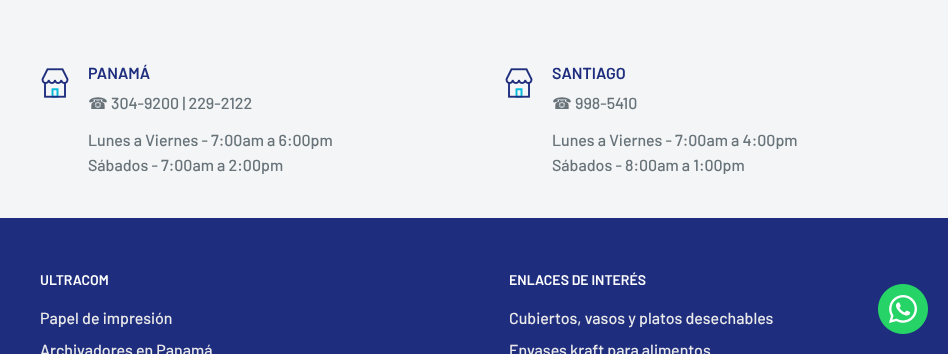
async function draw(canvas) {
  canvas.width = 948;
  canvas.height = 354;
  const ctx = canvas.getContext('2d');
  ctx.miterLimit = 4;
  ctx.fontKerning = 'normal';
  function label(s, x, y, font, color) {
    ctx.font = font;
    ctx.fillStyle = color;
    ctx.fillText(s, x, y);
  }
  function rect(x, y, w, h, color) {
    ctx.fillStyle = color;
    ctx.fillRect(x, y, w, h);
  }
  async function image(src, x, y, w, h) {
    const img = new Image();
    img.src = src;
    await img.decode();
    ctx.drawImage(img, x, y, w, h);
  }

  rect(0, 0, 948, 354, '#f3f5f6');
  await image('assets/img1.png', 41, 68, 28, 30);
  label('PANAMÁ', 88, 79, '600 16px Barlow', '#1e2d7d');
  label('☎', 88, 109, '16px DejaVu Sans', '#677279');
  label('304-9200 | 229-2122', 111, 109, '500 16px Barlow', '#677279');
  label('Lunes a Viernes - 7:00am a 6:00pm', 88, 146, '500 16px Barlow', '#677279');
  label('Sábados - 7:00am a 2:00pm', 88, 171, '500 16px Barlow', '#677279');
  await image('assets/img1.png', 505, 68, 28, 30);
  label('SANTIAGO', 552, 79, '600 16px Barlow', '#1e2d7d');
  label('☎', 552, 109, '16px DejaVu Sans', '#677279');
  label('998-5410', 575, 109, '500 16px Barlow', '#677279');
  label('Lunes a Viernes - 7:00am a 4:00pm', 552, 146, '500 16px Barlow', '#677279');
  label('Sábados - 8:00am a 1:00pm', 552, 171, '500 16px Barlow', '#677279');
  rect(0, 218, 948, 136, '#1e2d7d');
  label('ULTRACOM', 40, 285, '600 14px Barlow', '#fff');
  label('Papel de impresión', 40, 324, '500 16px Barlow', '#eaeaea');
  label('Archivadores en Panamá', 40, 356, '500 16px Barlow', '#eaeaea');
  label('ENLACES DE INTERÉS', 509, 285, '600 14px Barlow', '#fff');
  label('Cubiertos, vasos y platos desechables', 509, 324, '500 16px Barlow', '#eaeaea');
  label('Envases kraft para alimentos', 509, 356, '500 16px Barlow', '#eaeaea');
  await image('assets/img2.png', 878, 284, 50, 50);
}

draw(document.querySelector('canvas'));
